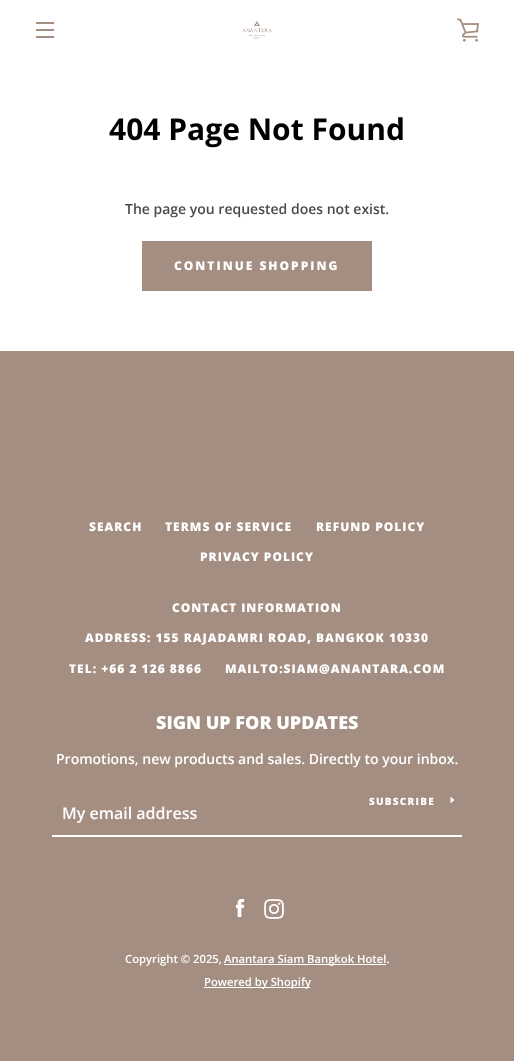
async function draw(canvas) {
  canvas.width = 514;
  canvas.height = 1061;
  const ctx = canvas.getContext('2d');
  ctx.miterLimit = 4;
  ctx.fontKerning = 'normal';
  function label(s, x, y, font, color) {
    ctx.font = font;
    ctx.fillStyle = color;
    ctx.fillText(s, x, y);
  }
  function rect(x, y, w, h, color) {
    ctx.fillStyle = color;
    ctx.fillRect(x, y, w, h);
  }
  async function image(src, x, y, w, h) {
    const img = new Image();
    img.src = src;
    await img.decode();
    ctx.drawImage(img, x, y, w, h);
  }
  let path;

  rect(0, 0, 514, 1061, '#a48e82');
  rect(0, 0, 514, 351, '#fff');
  rect(36, 22, 18, 2, '#a48e82');
  rect(36, 29, 18, 2, '#a48e82');
  rect(36, 36, 18, 2, '#a48e82');
  await image('assets/img1.png', 242, 20, 30, 19);
  await image('assets/img2.png', 457, 18, 22, 24);
  label('404 Page Not Found', 109, 140, 'bold 30px Open Sans', '#000');
  label('The page you requested does not exist.', 125, 214, '600 14px Open Sans', '#4a4a4a');
  rect(142, 241, 230, 50, '#a48e82');
  ctx.letterSpacing = '2px';
  label('CONTINUE SHOPPING', 174, 270, '800 12px Open Sans', '#fff');
  ctx.letterSpacing = '1px';
  label('SEARCH', 89, 531, '800 12px Open Sans', '#fff');
  label('TERMS OF SERVICE', 165, 531, '800 12px Open Sans', '#fff');
  label('REFUND POLICY', 316, 531, '800 12px Open Sans', '#fff');
  label('PRIVACY POLICY', 200, 561, '800 12px Open Sans', '#fff');
  label('CONTACT INFORMATION', 172, 612, '800 12px Open Sans', '#fff');
  label('ADDRESS: 155 RAJADAMRI ROAD, BANGKOK 10330', 85, 642, '800 12px Open Sans', '#fff');
  label('TEL: +66 2 126 8866', 69, 673, '800 12px Open Sans', '#fff');
  label('MAILTO:SIAM@ANANTARA.COM', 225, 673, '800 12px Open Sans', '#fff');
  ctx.letterSpacing = '0px';
  label('SIGN UP FOR UPDATES', 156, 729, '800 18px Open Sans', '#fff');
  label('Promotions, new products and sales. Directly to your inbox.', 56, 764, '600 14px Open Sans', '#fff');
  rect(52, 835, 410, 2, '#fff');
  ctx.letterSpacing = '1.25px';
  label('SUBSCRIBE', 369, 805, '800 10px Open Sans', '#fff');
  path = new Path2D('M454.5 800L450.5 803.5V796.5Z');
  ctx.fill(path);
  ctx.letterSpacing = '0px';
  label('My email address', 62, 819, '600 16px Open Sans', '#fff');
  await image('assets/img3.png', 235, 899, 10, 19);
  await image('assets/img4.png', 264, 899, 20, 20);
  label('Copyright © 2025,', 125, 963, '600 11.25px Open Sans', '#fff');
  rect(224, 964, 162, 1, '#fff');
  label('Anantara Siam Bangkok Hotel.', 224, 963, '600 11.25px Open Sans', '#fff');
  rect(204, 987, 106, 1, '#fff');
  label('Powered by Shopify', 204, 986, '600 11.25px Open Sans', '#fff');
}

draw(document.querySelector('canvas'));
